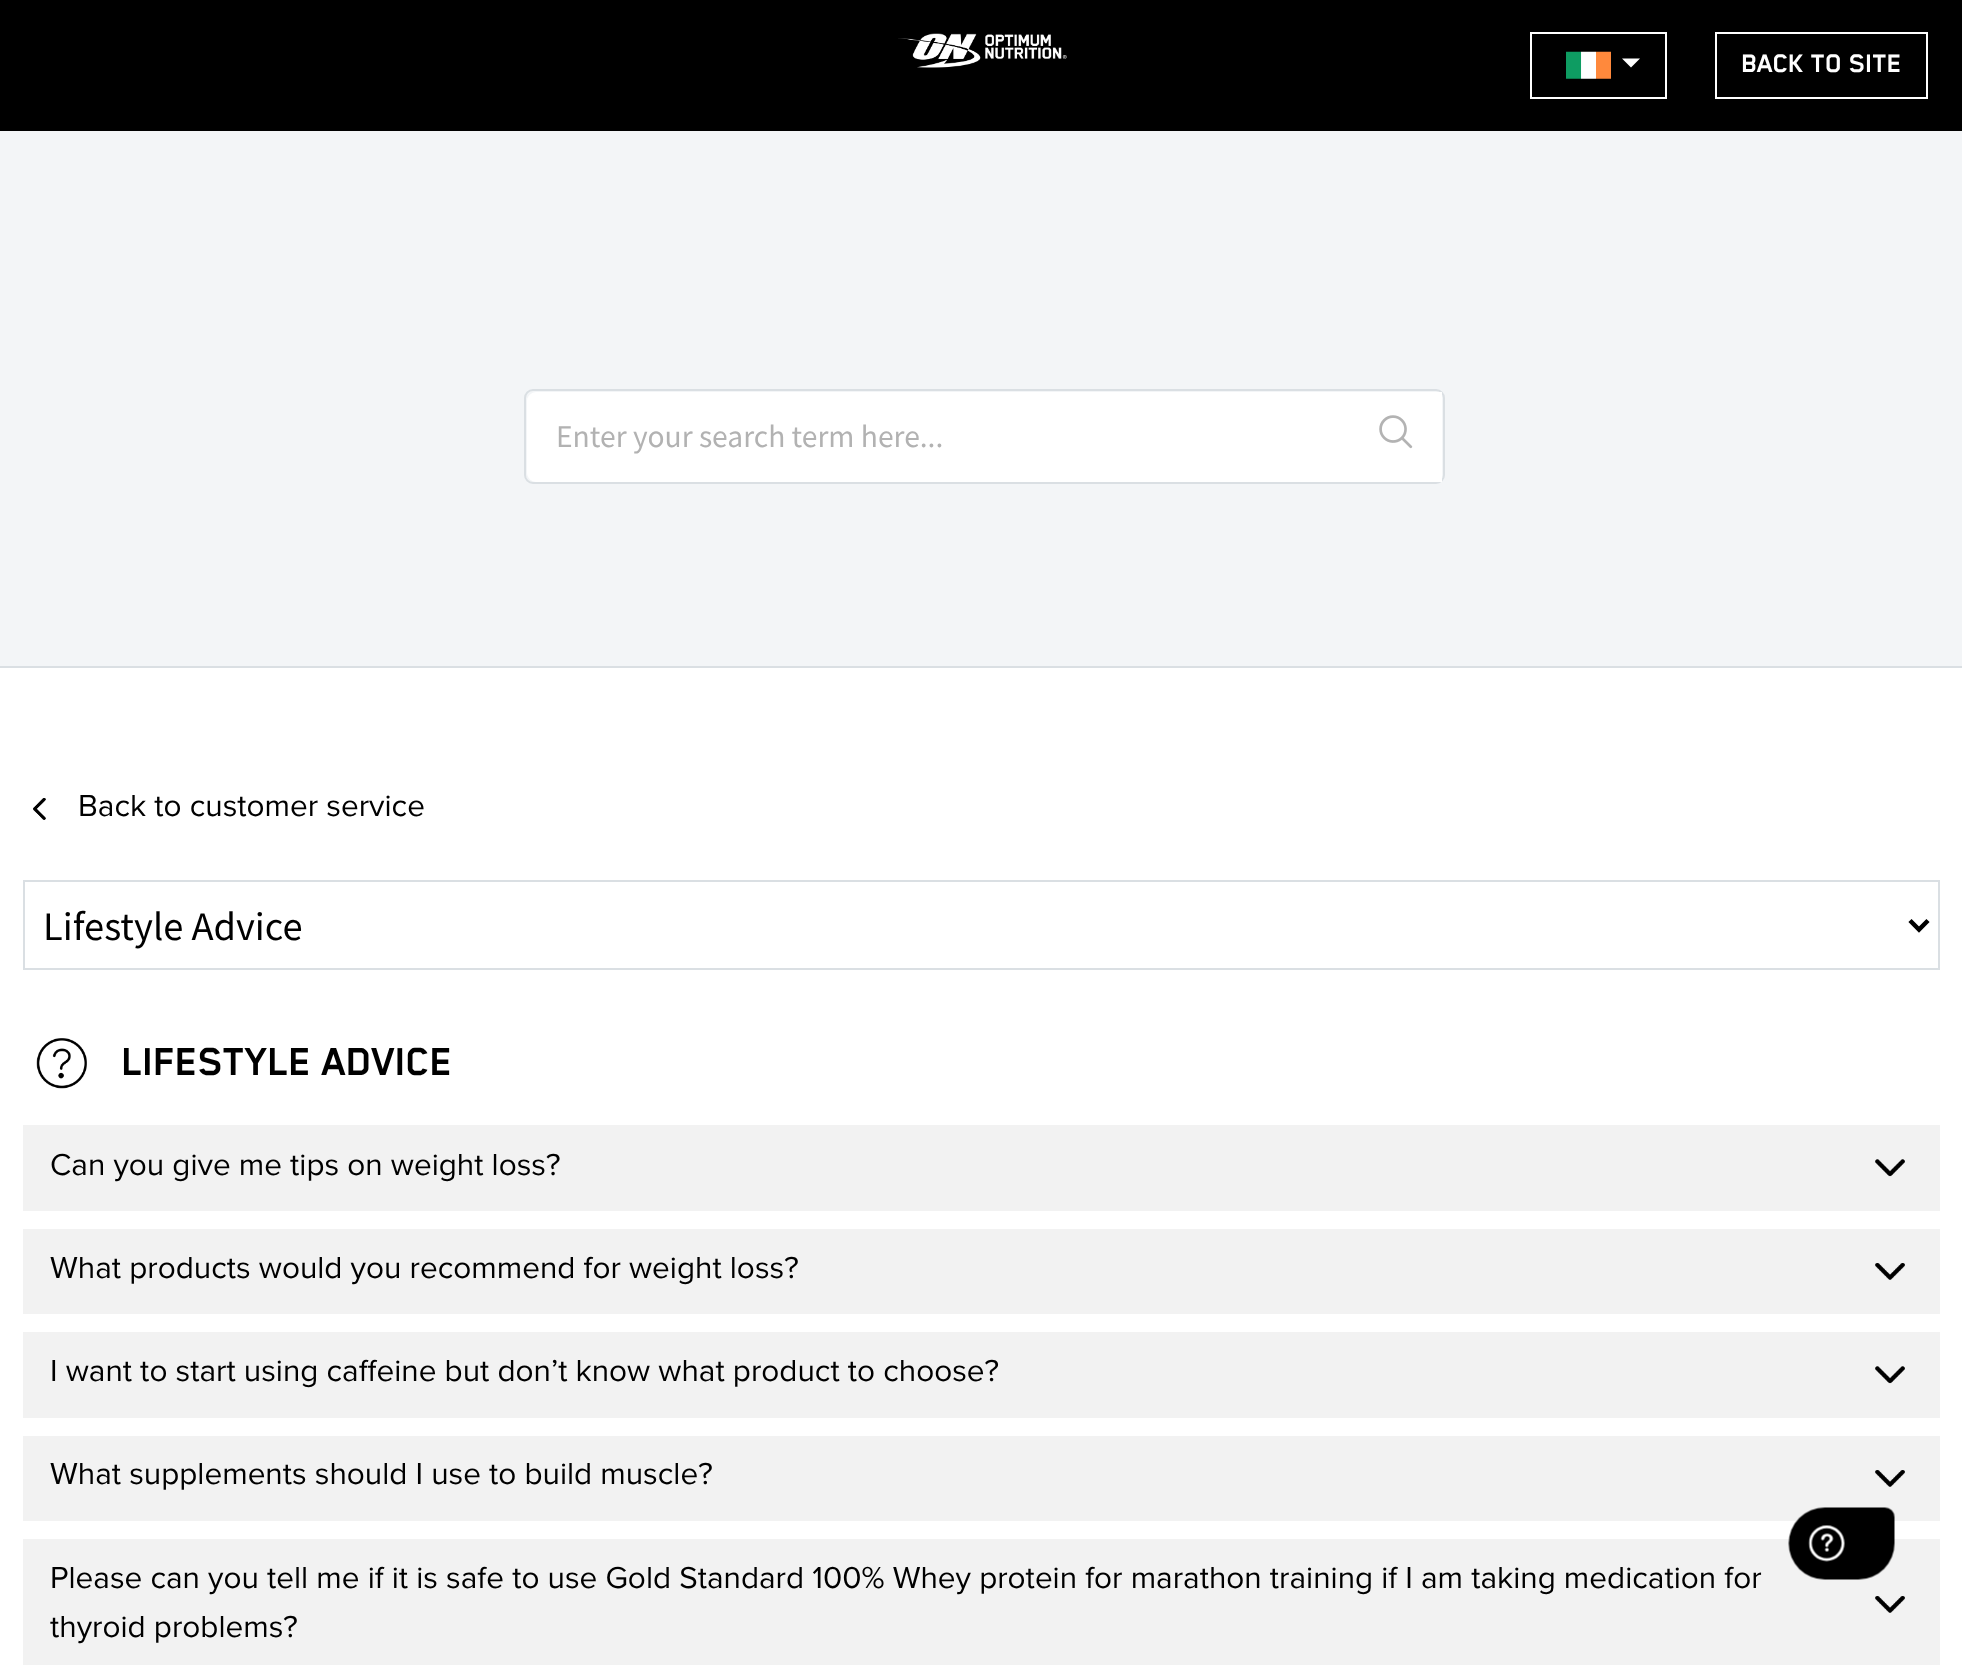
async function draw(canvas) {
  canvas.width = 1962;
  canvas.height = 1665;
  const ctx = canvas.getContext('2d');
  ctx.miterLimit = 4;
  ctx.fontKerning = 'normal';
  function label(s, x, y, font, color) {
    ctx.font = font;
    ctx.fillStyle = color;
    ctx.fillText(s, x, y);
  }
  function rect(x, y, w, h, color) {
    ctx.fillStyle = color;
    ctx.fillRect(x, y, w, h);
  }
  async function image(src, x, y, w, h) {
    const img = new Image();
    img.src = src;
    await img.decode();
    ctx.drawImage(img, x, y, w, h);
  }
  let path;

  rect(0, 0, 1962, 1665, '#fff');
  rect(0, 0, 1962, 131, '#000');
  await image('assets/img1.png', 898, 33, 169, 35);
  ctx.strokeStyle = '#fff';
  ctx.lineWidth = 2;
  ctx.strokeRect(1531, 33, 135, 65);
  await image('assets/img2.png', 1566, 51, 45, 28);
  ctx.fillStyle = '#fff';
  path = new Path2D('M1622 58.5H1640L1631 67.5Z');
  ctx.fill(path);
  ctx.strokeRect(1716, 33, 211, 65);
  label('BACK TO SITE', 1741, 72, 'bold 29.25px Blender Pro', '#fff');
  rect(0, 131, 1962, 535, '#f3f5f7');
  rect(0, 666, 1962, 2, '#dadfe3');
  ctx.beginPath();
  ctx.roundRect(525, 390, 919, 93, 8);
  ctx.strokeStyle = '#dadfe3';
  ctx.stroke();
  ctx.fillStyle = '#fff';
  ctx.beginPath();
  ctx.roundRect(527, 392, 823, 90, [9, 0, 0, 9]);
  ctx.fill();
  label('Enter your search term here...', 556, 447, '31.5px Source Sans Pro', '#b2b2b2');
  rect(1350, 392, 92, 90, '#fff');
  await image('assets/img3.png', 1379, 415, 34, 34);
  await image('assets/img4.png', 33, 798, 13, 22);
  label('Back to customer service', 78, 816, '31.5px Proxima Nova', '#000');
  ctx.strokeRect(24, 881, 1915, 88);
  path = new Path2D('M1910 920.5L1919 929.5L1928 920.5');
  ctx.strokeStyle = '#000';
  ctx.lineWidth = 4.5;
  ctx.stroke(path);
  label('Lifestyle Advice', 43, 940, '40.5px Source Sans Pro', '#000');
  await image('assets/img5.png', 36, 1038, 51, 51);
  label('LIFESTYLE ADVICE', 121, 1075, 'bold 45px Blender Pro', '#000');
  rect(23, 1125, 1917, 86, '#f2f2f2');
  label('Can you give me tips on weight loss?', 50, 1175, '31.5px Proxima Nova', '#000');
  await image('assets/img6.png', 1875, 1159, 30, 18);
  rect(23, 1229, 1917, 85, '#f2f2f2');
  label('What products would you recommend for weight loss?', 50, 1278, '31.5px Proxima Nova', '#000');
  await image('assets/img7.png', 1875, 1263, 30, 17);
  rect(23, 1332, 1917, 86, '#f2f2f2');
  label('I want to start using caffeine but don’t know what product to choose?', 50, 1381, '31.5px Proxima Nova', '#000');
  await image('assets/img6.png', 1875, 1366, 30, 18);
  rect(23, 1436, 1917, 85, '#f2f2f2');
  label('What supplements should I use to build muscle?', 50, 1484, '31.5px Proxima Nova', '#000');
  await image('assets/img7.png', 1875, 1470, 30, 17);
  rect(23, 1539, 1917, 126, '#f2f2f2');
  label('Please can you tell me if it is safe to use Gold Standard 100% Whey protein for marathon training if I am taking medication for', 50, 1588, '31.5px Proxima Nova', '#000');
  label('thyroid problems?', 50, 1637, '31.5px Proxima Nova', '#000');
  await image('assets/img7.png', 1875, 1596, 30, 17);
  await image('assets/img8.png', 1788, 1507, 107, 73);
}

draw(document.querySelector('canvas'));
